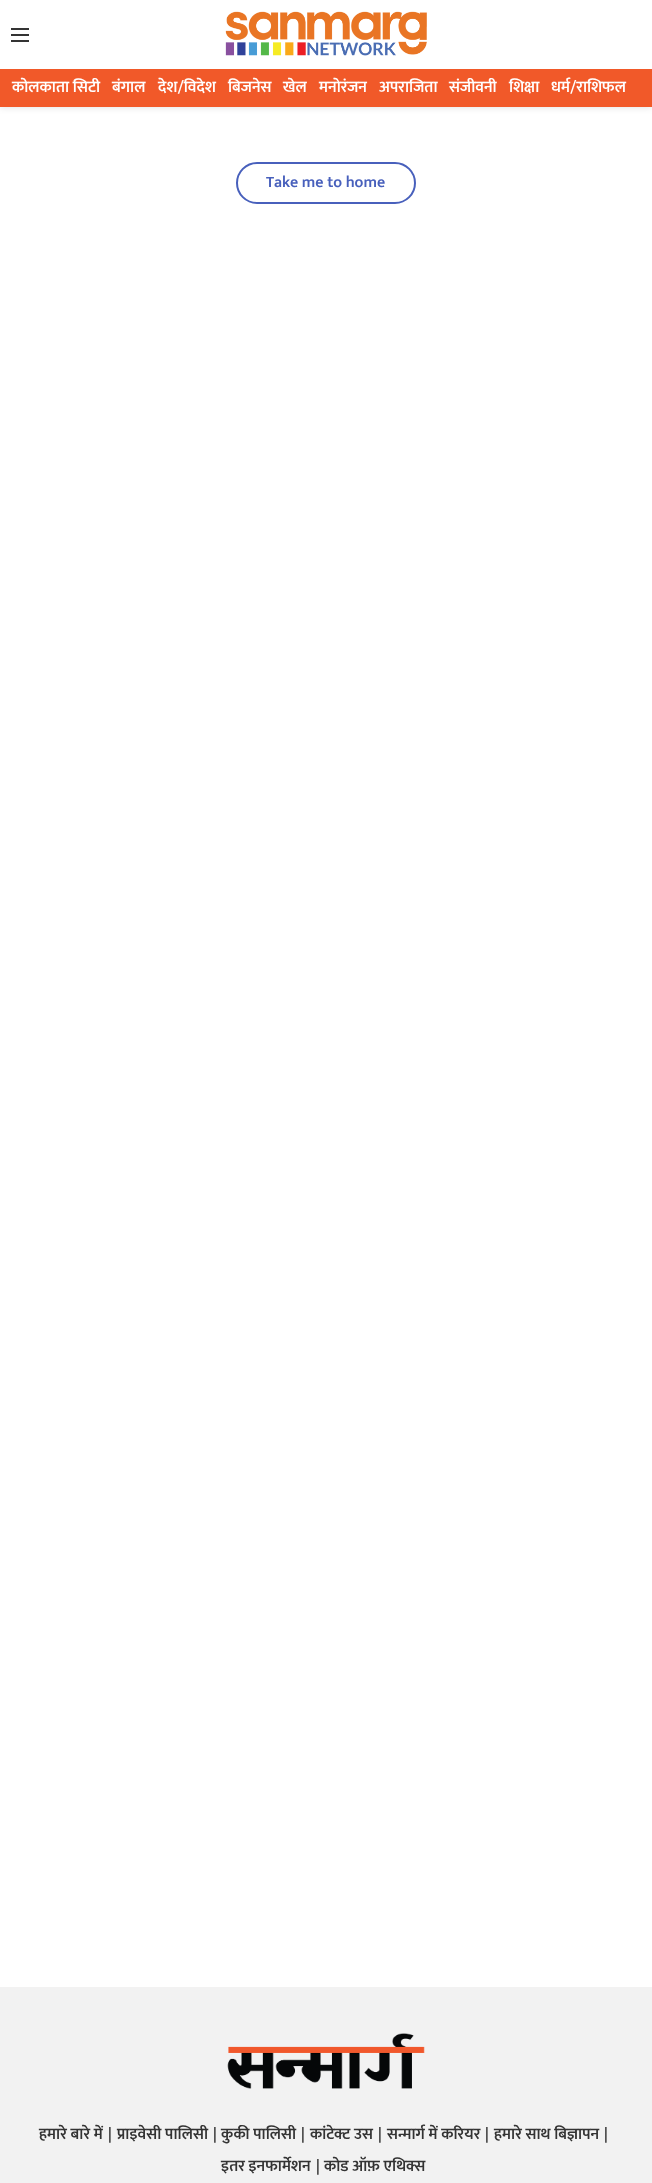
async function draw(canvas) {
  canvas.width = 652;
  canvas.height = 2183;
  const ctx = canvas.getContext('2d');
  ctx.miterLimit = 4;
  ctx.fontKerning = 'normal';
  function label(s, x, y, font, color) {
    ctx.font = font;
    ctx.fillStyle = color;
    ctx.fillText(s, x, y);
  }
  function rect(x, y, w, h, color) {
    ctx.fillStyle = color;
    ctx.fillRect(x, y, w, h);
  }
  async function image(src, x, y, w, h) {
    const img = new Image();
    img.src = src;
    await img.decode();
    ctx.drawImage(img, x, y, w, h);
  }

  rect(0, 0, 652, 2183, '#fff');
  ctx.fillStyle = '#0000001a';
  ctx.filter = 'blur(3px)';
  ctx.beginPath();
  ctx.rect(0, 1, 652, 107);
  ctx.fill();
  ctx.filter = 'none';
  rect(0, 0, 652, 69, '#fff');
  await image('assets/img1.png', 11, 28, 18, 14);
  await image('assets/img2.png', 225, 11, 202, 45);
  rect(0, 69, 652, 38, '#f15929');
  label('कोलकाता सिटी', 12, 92, '600 16px Mukta', '#fff');
  label('बंगाल', 112, 92, '600 16px Mukta', '#fff');
  label('देश/विदेश', 158, 92, '600 16px Mukta', '#fff');
  label('बिजनेस', 228, 92, '600 16px Mukta', '#fff');
  label('खेल', 283, 92, '600 16px Mukta', '#fff');
  label('मनोरंजन', 319, 92, '600 16px Mukta', '#fff');
  label('अपराजिता', 379, 92, '600 16px Mukta', '#fff');
  label('संजीवनी', 449, 92, '600 16px Mukta', '#fff');
  label('शिक्षा', 509, 92, '600 16px Mukta', '#fff');
  label('धर्म/राशिफल', 551, 92, '600 16px Mukta', '#fff');
  ctx.beginPath();
  ctx.roundRect(237, 163, 178, 40, 20);
  ctx.strokeStyle = '#4860bc';
  ctx.lineWidth = 2;
  ctx.stroke();
  label('Take me to home', 266, 187, '600 16px Mukta', '#4860bc');
  rect(0, 1987, 652, 196, '#f2f2f2');
  await image('assets/img3.png', 227, 2033, 198, 56);
  label('हमारे बारे में', 39, 2139, '600 16px Mukta', '#333');
  label('|', 108, 2139, '600 16px Mukta', '#333');
  label('प्राइवेसी पालिसी', 117, 2139, '600 16px Mukta', '#333');
  label('|', 213, 2139, '600 16px Mukta', '#333');
  label('कुकी पालिसी', 221, 2139, '600 16px Mukta', '#333');
  label('|', 301, 2139, '600 16px Mukta', '#333');
  label('कांटेक्ट उस', 310, 2139, '600 16px Mukta', '#333');
  label('|', 378, 2139, '600 16px Mukta', '#333');
  label('सन्मार्ग में करियर', 387, 2139, '600 16px Mukta', '#333');
  label('|', 485, 2139, '600 16px Mukta', '#333');
  label('हमारे साथ बिज्ञापन', 494, 2139, '600 16px Mukta', '#333');
  label('|', 604, 2139, '600 16px Mukta', '#333');
  label('इतर इनफार्मेशन', 221, 2171, '600 16px Mukta', '#333');
  label('|', 316, 2171, '600 16px Mukta', '#333');
  label('कोड ऑफ़ एथिक्स', 324, 2171, '600 16px Mukta', '#333');
}

draw(document.querySelector('canvas'));
